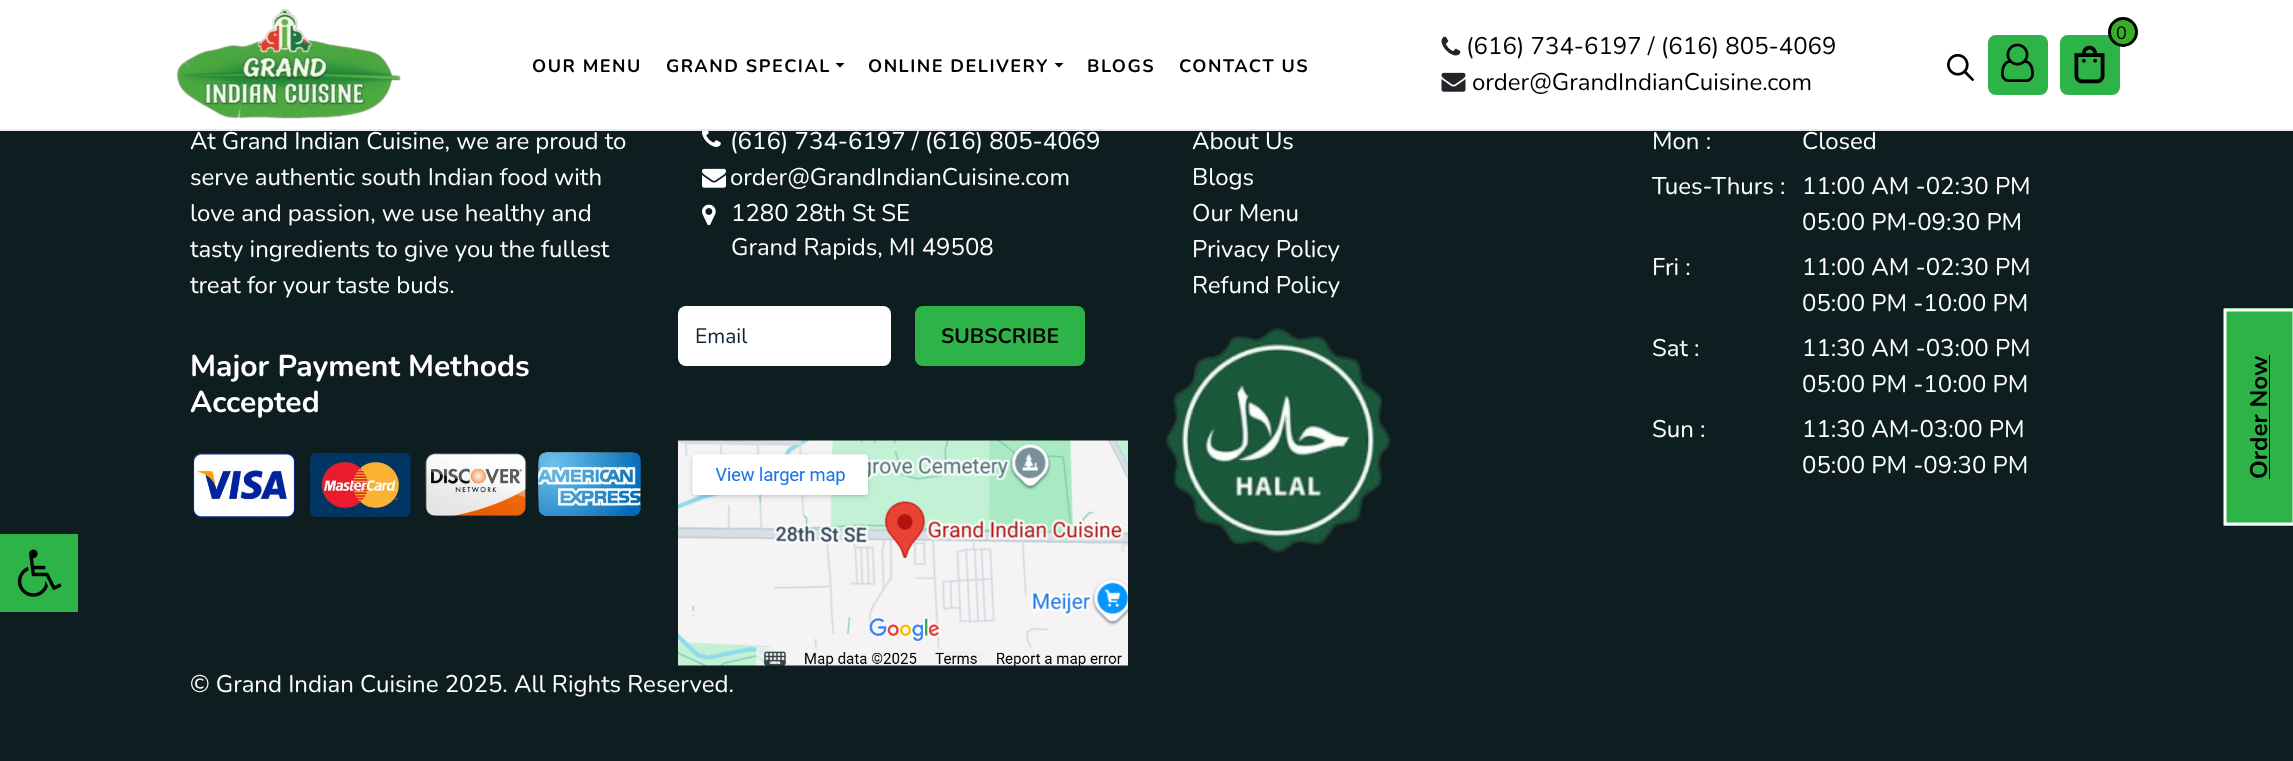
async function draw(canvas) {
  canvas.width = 2293;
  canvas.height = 761;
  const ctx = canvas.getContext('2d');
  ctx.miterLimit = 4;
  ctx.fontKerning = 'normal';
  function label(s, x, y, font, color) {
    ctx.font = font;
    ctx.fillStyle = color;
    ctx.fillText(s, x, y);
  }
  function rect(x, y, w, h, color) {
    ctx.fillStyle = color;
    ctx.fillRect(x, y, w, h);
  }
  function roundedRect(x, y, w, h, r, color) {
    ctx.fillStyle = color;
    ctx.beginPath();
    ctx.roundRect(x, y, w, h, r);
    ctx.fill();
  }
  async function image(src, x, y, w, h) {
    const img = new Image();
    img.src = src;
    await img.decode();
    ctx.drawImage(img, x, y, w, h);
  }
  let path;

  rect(0, 0, 2293, 761, '#0e1d1f');
  rect(0, 0, 2293, 129, '#fff');
  rect(0, 129, 2293, 2, '#eaeaea');
  await image('assets/img1.png', 176, 8, 225, 111);
  roundedRect(2060, 35, 60, 60, 8, '#2eb349');
  ctx.fillStyle = '#37ae28';
  ctx.beginPath();
  ctx.arc(2123, 32, 13.5, 0, 2 * Math.PI);
  ctx.fill();
  ctx.strokeStyle = '#000';
  ctx.lineWidth = 3;
  ctx.stroke();
  label('0', 2116, 39, '18px Nunito', '#000');
  await image('assets/img2.png', 2074, 45, 31, 39);
  await image('assets/img3.png', 1947, 54, 27, 27);
  roundedRect(1988, 35, 60, 60, 8, '#2eb349');
  await image('assets/img4.png', 2001, 43, 33, 39);
  ctx.letterSpacing = '1.5px';
  label('OUR MENU', 532, 72, 'bold 18px Nunito', '#000');
  label('GRAND SPECIAL', 666, 72, 'bold 18px Nunito', '#000');
  path = new Path2D('M835.5 63H844.5L840 67.5Z');
  ctx.fill(path);
  label('ONLINE DELIVERY', 868, 72, 'bold 18px Nunito', '#000');
  path = new Path2D('M1054.5 63H1063.5L1059 67.5Z');
  ctx.fill(path);
  label('BLOGS', 1087, 72, 'bold 18px Nunito', '#000');
  label('CONTACT US', 1179, 72, 'bold 18px Nunito', '#000');
  await image('assets/img5.png', 1441, 36, 20, 20);
  ctx.letterSpacing = '0px';
  label('(616) 734-6197 / (616) 805-4069', 1466, 54, '24px Nunito', '#000');
  await image('assets/img6.png', 1441, 72, 25, 20);
  label('order@GrandIndianCuisine.com', 1472, 90, '24px Nunito', '#000');
  label('At Grand Indian Cuisine, we are proud to', 190, 149, '24px Nunito', '#fff');
  label('serve authentic south Indian food with', 190, 185, '24px Nunito', '#fff');
  label('love and passion, we use healthy and', 190, 221, '24px Nunito', '#fff');
  label('tasty ingredients to give you the fullest', 190, 257, '24px Nunito', '#fff');
  label('treat for your taste buds.', 190, 293, '24px Nunito', '#fff');
  label('Major Payment Methods', 190, 376, 'bold 30px Nunito', '#fff');
  label('Accepted', 190, 412, 'bold 30px Nunito', '#fff');
  await image('assets/img7.png', 192, 452, 449, 66);
  await image('assets/img8.png', 702, 131, 19, 16);
  label('(616) 734-6197 / (616) 805-4069', 730, 149, '24px Nunito', '#fff');
  await image('assets/img9.png', 702, 168, 24, 20);
  label('order@GrandIndianCuisine.com', 730, 185, '24px Nunito', '#fff');
  await image('assets/img10.png', 702, 204, 14, 22);
  label('1280 28th St SE', 731, 221, '24px Nunito', '#fff');
  label('Grand Rapids, MI 49508', 731, 255, '24px Nunito', '#fff');
  roundedRect(678, 306, 213, 60, 8, '#fff');
  label('Email', 695, 343, '21px Nunito', '#112337');
  roundedRect(915, 306, 170, 60, 8, '#2eb349');
  label('SUBSCRIBE', 941, 343, 'bold 21px Nunito', '#000');
  await image('assets/img11.png', 678, 440, 450, 226);
  label('About Us', 1192, 149, '24px Nunito', '#fff');
  label('Blogs', 1192, 185, '24px Nunito', '#fff');
  label('Our Menu', 1192, 221, '24px Nunito', '#fff');
  label('Privacy Policy', 1192, 257, '24px Nunito', '#fff');
  label('Refund Policy', 1192, 293, '24px Nunito', '#fff');
  await image('assets/img12.png', 1165, 328, 226, 225);
  label('Mon :', 1652, 149, '24px Nunito', '#fff');
  label('Closed', 1802, 149, '24px Nunito', '#fff');
  label('Tues-Thurs :', 1652, 194, '24px Nunito', '#fff');
  label('11:00 AM -02:30 PM', 1802, 194, '24px Nunito', '#fff');
  label('05:00 PM-09:30 PM', 1802, 230, '24px Nunito', '#fff');
  label('Fri :', 1652, 275, '24px Nunito', '#fff');
  label('11:00 AM -02:30 PM', 1802, 275, '24px Nunito', '#fff');
  label('05:00 PM -10:00 PM', 1802, 311, '24px Nunito', '#fff');
  label('Sat :', 1652, 356, '24px Nunito', '#fff');
  label('11:30 AM -03:00 PM', 1802, 356, '24px Nunito', '#fff');
  label('05:00 PM -10:00 PM', 1802, 392, '24px Nunito', '#fff');
  label('Sun :', 1652, 437, '24px Nunito', '#fff');
  label('11:30 AM-03:00 PM', 1802, 437, '24px Nunito', '#fff');
  label('05:00 PM -09:30 PM', 1802, 473, '24px Nunito', '#fff');
  label('© Grand Indian Cuisine 2025. All Rights Reserved.', 190, 692, '24px Nunito', '#fff');
  rect(2224, 308, 69, 218, '#2eb349');
  path = new Path2D('M2225 524V310H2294V524Z');
  ctx.strokeStyle = '#fff';
  ctx.stroke(path);
  ctx.font = 'bold 24px Nunito';
  ctx.fillStyle = '#000';
  ctx.save();
  ctx.translate(2267, 479);
  ctx.rotate(-90 * Math.PI / 180);
  ctx.fillText('Order Now', 0, 0);
  ctx.restore();
  rect(2269, 355, 1, 124, '#000');
  rect(0, 534, 78, 78, '#2eb349');
  await image('assets/img13.png', 17, 549, 45, 48);
}

draw(document.querySelector('canvas'));
